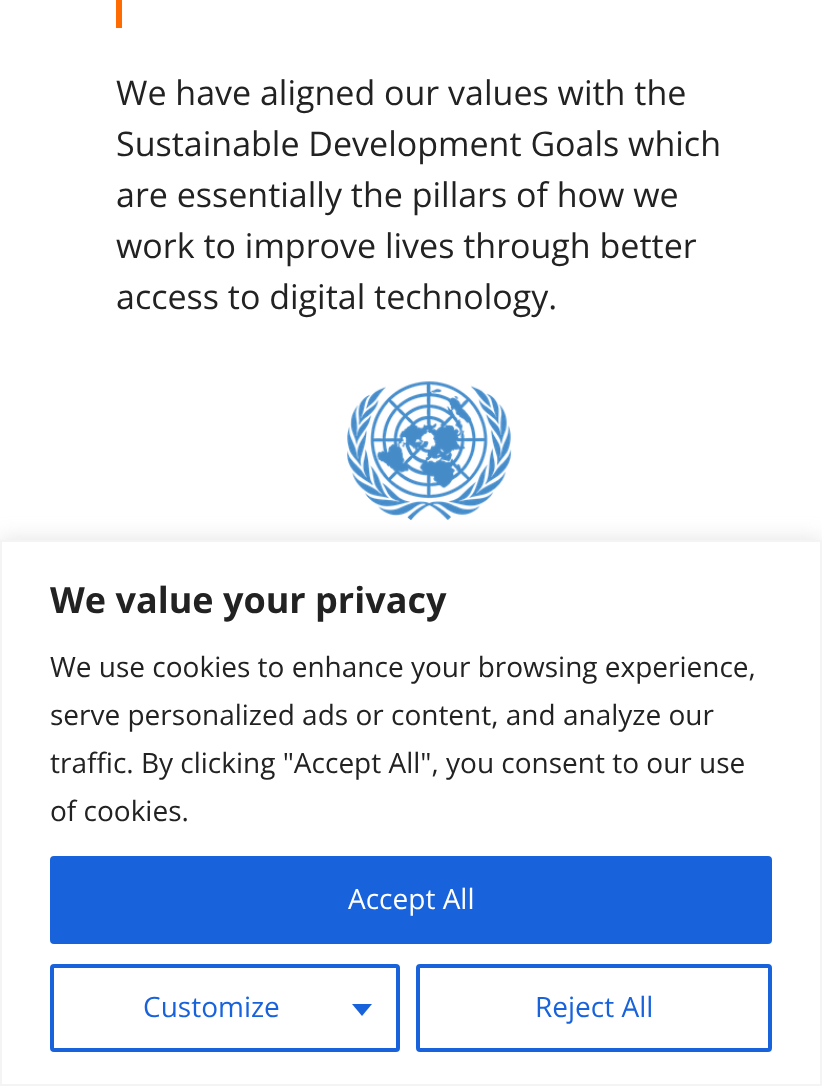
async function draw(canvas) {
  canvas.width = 822;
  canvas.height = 1086;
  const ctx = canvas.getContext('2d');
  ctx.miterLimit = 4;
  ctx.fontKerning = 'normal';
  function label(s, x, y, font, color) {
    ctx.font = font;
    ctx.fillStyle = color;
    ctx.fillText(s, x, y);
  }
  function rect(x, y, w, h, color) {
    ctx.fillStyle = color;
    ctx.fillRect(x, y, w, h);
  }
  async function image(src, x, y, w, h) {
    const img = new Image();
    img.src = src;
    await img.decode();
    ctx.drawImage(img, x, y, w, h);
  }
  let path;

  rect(0, 0, 822, 1086, '#fff');
  rect(116, 0, 6, 28, '#ff6b00');
  label('We have aligned our values with the', 116, 105, '34px Open Sans', '#222');
  label('Sustainable Development Goals which', 116, 156, '34px Open Sans', '#222');
  label('are essentially the pillars of how we', 116, 207, '34px Open Sans', '#222');
  label('work to improve lives through better', 116, 258, '34px Open Sans', '#222');
  label('access to digital technology.', 116, 309, '34px Open Sans', '#222');
  await image('assets/img1.png', 347, 381, 165, 140);
  ctx.fillStyle = '#acabab4d';
  ctx.filter = 'blur(10px)';
  ctx.beginPath();
  ctx.rect(0, 538, 822, 546);
  ctx.fill();
  ctx.filter = 'none';
  ctx.fillStyle = '#fff';
  ctx.beginPath();
  ctx.rect(1, 541, 820, 544);
  ctx.fill();
  ctx.strokeStyle = '#f4f4f4';
  ctx.lineWidth = 2;
  ctx.stroke();
  label('We value your privacy', 50, 613, 'bold 36px Open Sans', '#222');
  label('We use cookies to enhance your browsing experience,', 50, 677, '28px Open Sans', '#222');
  label('serve personalized ads or content, and analyze our', 50, 725, '28px Open Sans', '#222');
  label('traffic. By clicking "Accept All", you consent to our use', 50, 773, '28px Open Sans', '#222');
  label('of cookies.', 50, 821, '28px Open Sans', '#222');
  ctx.fillStyle = '#1863dc';
  ctx.beginPath();
  ctx.roundRect(52, 858, 718, 84, 2);
  ctx.fill();
  ctx.strokeStyle = '#1863dc';
  ctx.lineWidth = 4;
  ctx.stroke();
  label('Accept All', 348, 909, '28px Open Sans', '#fff');
  ctx.beginPath();
  ctx.roundRect(52, 966, 346, 84, 2);
  ctx.stroke();
  label('Customize', 143, 1017, '28px Open Sans', '#1863dc');
  path = new Path2D('M352 1004H372L362 1016Z');
  ctx.fill(path);
  ctx.beginPath();
  ctx.roundRect(418, 966, 352, 84, 2);
  ctx.stroke();
  label('Reject All', 535, 1017, '28px Open Sans', '#1863dc');
}

draw(document.querySelector('canvas'));
